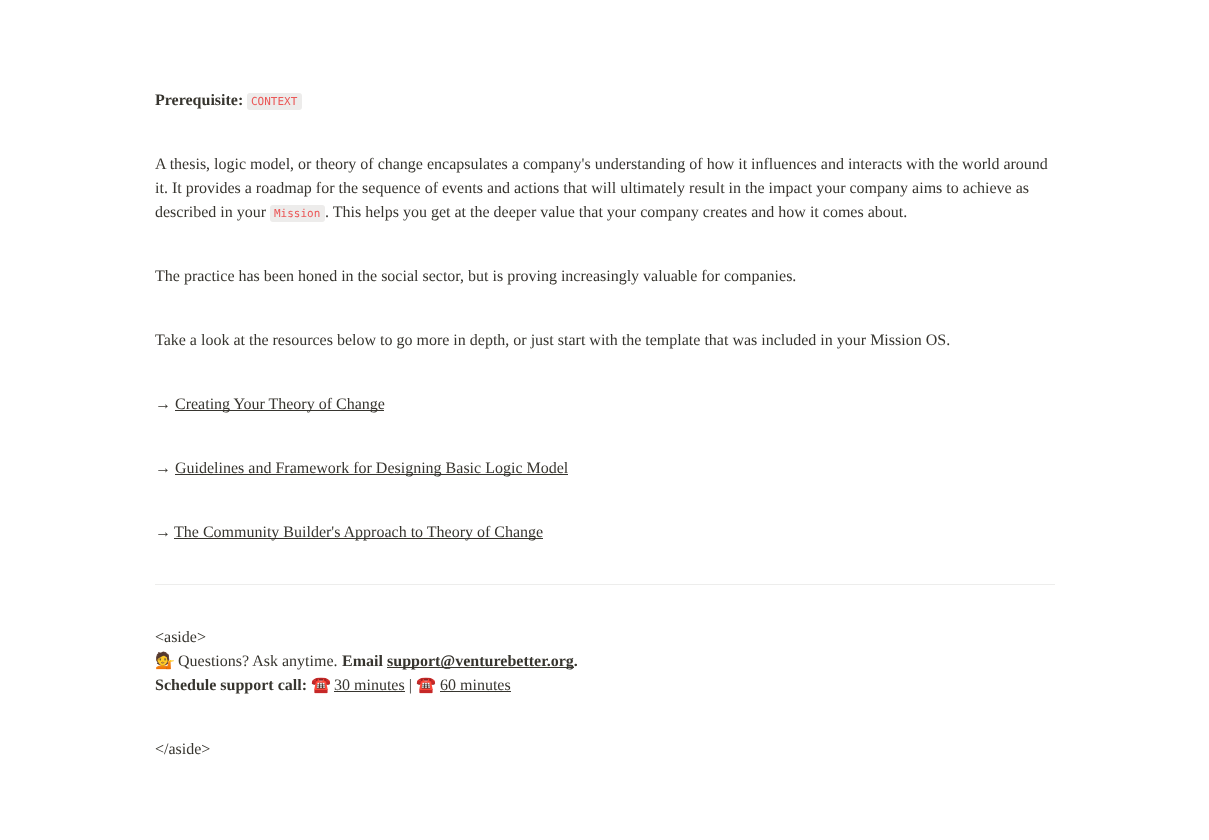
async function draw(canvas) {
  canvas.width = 1209;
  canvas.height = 840;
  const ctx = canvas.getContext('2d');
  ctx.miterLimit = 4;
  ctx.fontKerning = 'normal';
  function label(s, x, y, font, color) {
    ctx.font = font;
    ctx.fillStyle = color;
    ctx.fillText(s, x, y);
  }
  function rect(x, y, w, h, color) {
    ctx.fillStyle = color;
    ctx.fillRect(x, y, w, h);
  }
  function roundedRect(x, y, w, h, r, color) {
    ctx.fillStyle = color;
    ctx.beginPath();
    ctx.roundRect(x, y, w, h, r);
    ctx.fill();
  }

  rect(0, 0, 1209, 840, '#fff');
  label('Prerequisite:', 155, 105, 'bold 16px Liberation Serif', '#37352f');
  roundedRect(247, 93, 55, 17, 3, '#edeceb');
  label('CONTEXT', 251, 105, '11px DejaVu Sans Mono', '#eb5757');
  label('A thesis, logic model, or theory of change encapsulates a company\'s understanding of how it influences and interacts with the world around', 155, 169, '16px Liberation Serif', '#37352f');
  label('it. It provides a roadmap for the sequence of events and actions that will ultimately result in the impact your company aims to achieve as', 155, 193, '16px Liberation Serif', '#37352f');
  label('described in your', 155, 217, '16px Liberation Serif', '#37352f');
  roundedRect(270, 205, 55, 17, 3, '#edeceb');
  label('Mission', 274, 217, '11px DejaVu Sans Mono', '#eb5757');
  label('. This helps you get at the deeper value that your company creates and how it comes about.', 325, 217, '16px Liberation Serif', '#37352f');
  label('The practice has been honed in the social sector, but is proving increasingly valuable for companies.', 155, 281, '16px Liberation Serif', '#37352f');
  label('Take a look at the resources below to go more in depth, or just start with the template that was included in your Mission OS.', 155, 345, '16px Liberation Serif', '#37352f');
  label('→', 155, 409, '16px Liberation Serif', '#37352f');
  rect(175, 410, 209, 1, '#37352f');
  label('Creating Your Theory of Change', 175, 409, '16px Liberation Serif', '#37352f');
  label('→', 155, 473, '16px Liberation Serif', '#37352f');
  rect(175, 474, 393, 1, '#37352f');
  label('Guidelines and Framework for Designing Basic Logic Model', 175, 473, '16px Liberation Serif', '#37352f');
  label('→', 155, 537, '16px Liberation Serif', '#37352f');
  rect(174, 538, 369, 1, '#37352f');
  label('The Community Builder\'s Approach to Theory of Change', 174, 537, '16px Liberation Serif', '#37352f');
  rect(155, 584, 900, 1, '#ededec');
  label('<aside>', 155, 642, '16px Liberation Serif', '#37352f');
  label('💁', 155, 666, '16px Noto Color Emoji', '#37352f');
  label('Questions? Ask anytime.', 178, 666, '16px Liberation Serif', '#37352f');
  label('Email', 342, 666, 'bold 16px Liberation Serif', '#37352f');
  rect(387, 667, 187, 1, '#37352f');
  label('support@venturebetter.org.', 387, 666, 'bold 16px Liberation Serif', '#37352f');
  label('Schedule support call:', 155, 690, 'bold 16px Liberation Serif', '#37352f');
  label('☎️', 311, 690, '16px Noto Color Emoji', '#37352f');
  rect(334, 691, 71, 1, '#37352f');
  label('30 minutes |', 334, 690, '16px Liberation Serif', '#37352f');
  label('☎️', 416, 690, '16px Noto Color Emoji', '#37352f');
  label('60 minutes', 440, 690, '16px Liberation Serif', '#37352f');
  rect(440, 691, 71, 1, '#37352f');
  label('<\/aside>', 155, 754, '16px Liberation Serif', '#37352f');
}

draw(document.querySelector('canvas'));
